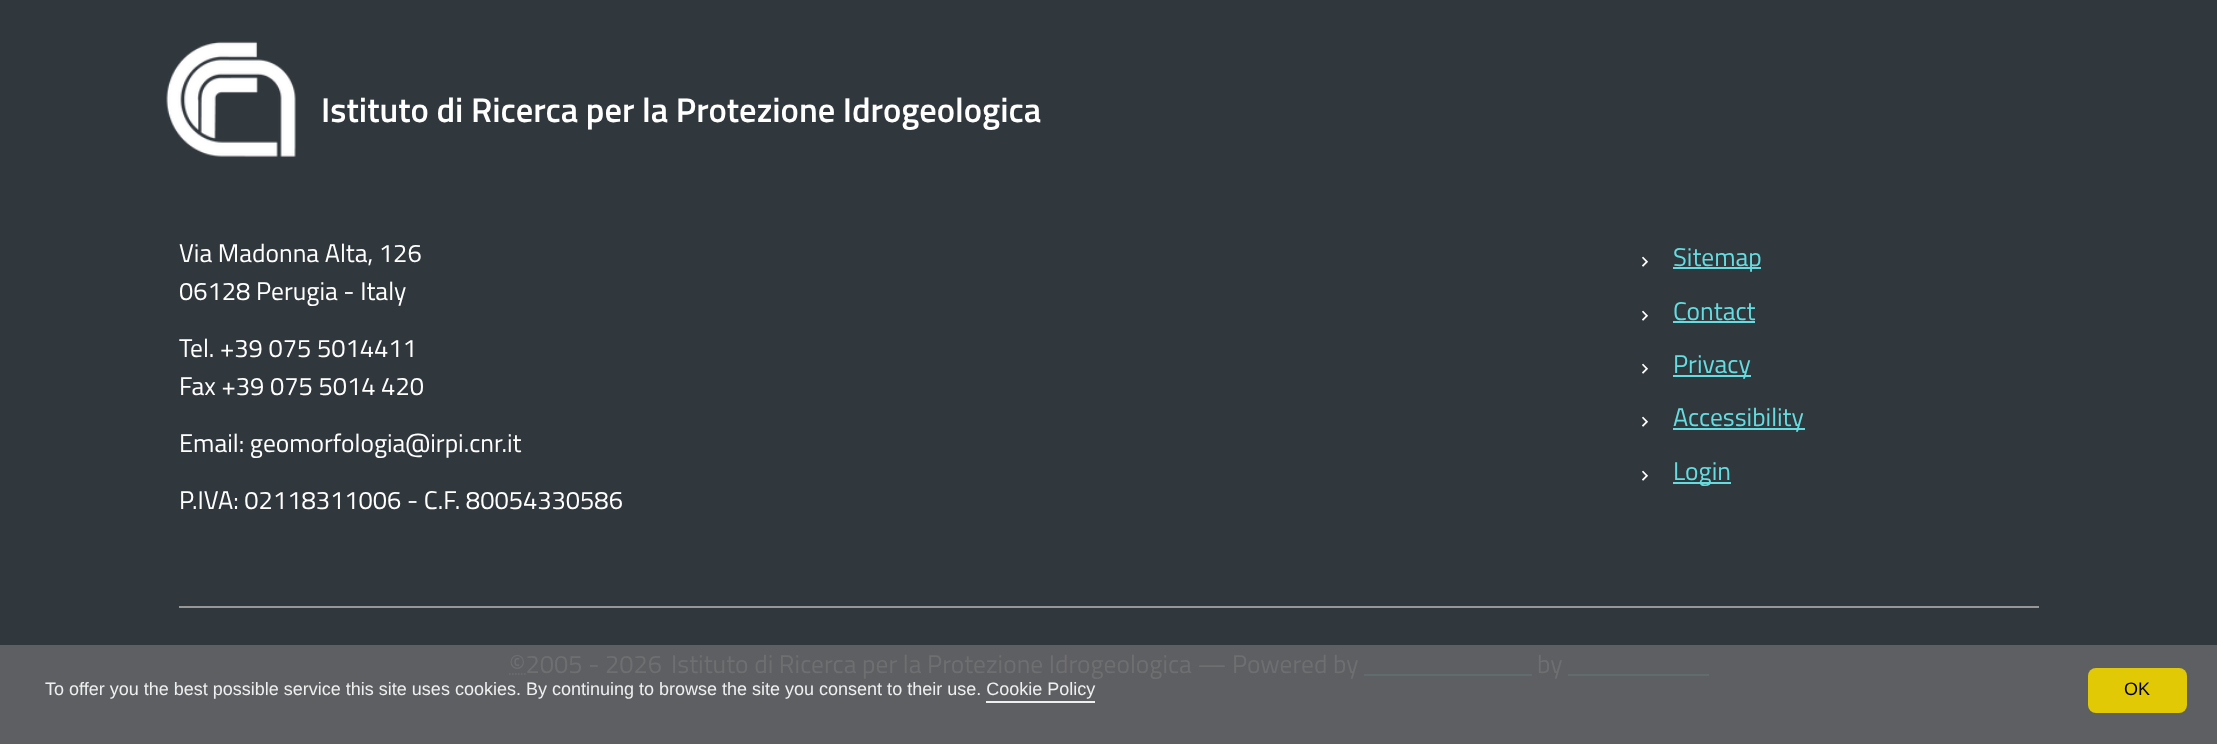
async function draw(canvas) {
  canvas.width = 2217;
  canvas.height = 744;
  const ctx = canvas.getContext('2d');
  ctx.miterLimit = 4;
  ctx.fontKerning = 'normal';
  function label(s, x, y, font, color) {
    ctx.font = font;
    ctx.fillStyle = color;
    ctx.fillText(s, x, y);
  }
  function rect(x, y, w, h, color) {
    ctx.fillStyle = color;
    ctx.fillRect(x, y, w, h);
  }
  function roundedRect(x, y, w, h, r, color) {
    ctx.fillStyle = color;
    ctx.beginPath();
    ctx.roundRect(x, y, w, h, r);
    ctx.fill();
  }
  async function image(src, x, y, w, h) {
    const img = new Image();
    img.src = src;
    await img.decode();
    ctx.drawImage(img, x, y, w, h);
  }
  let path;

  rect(0, 0, 2217, 744, '#30373d');
  rect(0, 645, 2217, 99, '#5d5f62');
  await image('assets/img1.png', 166, 41, 130, 116);
  label('Istituto di Ricerca per la Protezione Idrogeologica', 321, 122, '600 34.5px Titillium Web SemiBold', '#fff');
  label('Via Madonna Alta, 126', 179, 262, '25.5px Titillium Web', '#fff');
  label('06128 Perugia - Italy', 179, 300, '25.5px Titillium Web', '#fff');
  label('Tel. +39 075 5014411', 179, 357, '25.5px Titillium Web', '#fff');
  label('Fax +39 075 5014 420', 179, 395, '25.5px Titillium Web', '#fff');
  label('Email: geomorfologia@irpi.cnr.it', 179, 452, '25.5px Titillium Web', '#fff');
  label('P.IVA: 02118311006 - C.F. 80054330586', 179, 509, '25.5px Titillium Web', '#fff');
  label('⏵', 1640, 266, '10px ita', '#fff');
  rect(1673, 267, 88, 2, '#65dde0');
  label('Sitemap', 1673, 266, '25.5px Titillium Web', '#65dde0');
  label('⏵', 1640, 320, '10px ita', '#fff');
  label('Contact', 1673, 320, '25.5px Titillium Web', '#65dde0');
  rect(1673, 321, 82, 2, '#65dde0');
  label('⏵', 1640, 373, '10px ita', '#fff');
  rect(1673, 375, 78, 2, '#65dde0');
  label('Privacy', 1673, 373, '25.5px Titillium Web', '#65dde0');
  label('⏵', 1640, 426, '10px ita', '#fff');
  rect(1673, 428, 132, 2, '#65dde0');
  label('Accessibility', 1673, 426, '25.5px Titillium Web', '#65dde0');
  label('⏵', 1640, 480, '10px ita', '#fff');
  rect(1673, 482, 58, 2, '#65dde0');
  label('Login', 1673, 480, '25.5px Titillium Web', '#65dde0');
  rect(179, 606, 1860, 2, '#979797');
  path = new Path2D('M509 674H525.5');
  ctx.strokeStyle = '#6e6f71';
  ctx.lineWidth = 1.5;
  ctx.setLineDash([1.5, 1.5]);
  ctx.stroke(path);
  label('©2005 - 2026', 509, 673, '25.5px Titillium Web', '#6e6f71');
  label('Istituto di Ricerca per la Protezione Idrogeologica — Powered by', 671, 673, '25.5px Titillium Web', '#6e6f71');
  label('by', 1537, 673, '25.5px Titillium Web', '#6e6f71');
  rect(1364, 674, 168, 2, '#616c6f');
  rect(1568, 674, 141, 2, '#616c6f');
  label('To offer you the best possible service this site uses cookies. By continuing to browse the site you consent to their use. Cookie Policy', 45, 695, '18px Liberation Sans', '#eeefef');
  rect(986, 701, 109, 2, '#eeefef');
  roundedRect(2088, 668, 99, 45, 8, '#e2c905');
  label('OK', 2124, 695, '18px Liberation Sans', '#040405');
}

draw(document.querySelector('canvas'));
